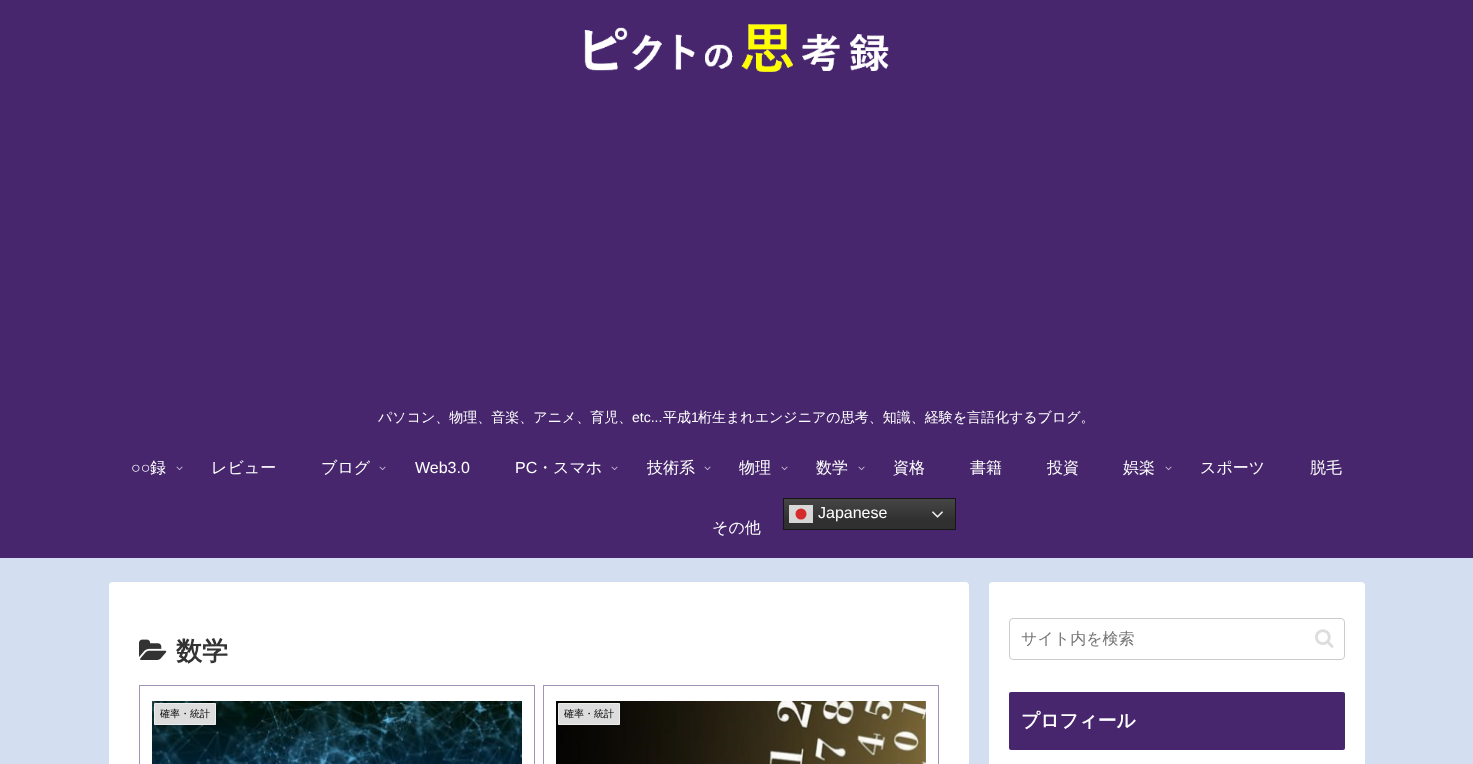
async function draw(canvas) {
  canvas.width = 1473;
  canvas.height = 764;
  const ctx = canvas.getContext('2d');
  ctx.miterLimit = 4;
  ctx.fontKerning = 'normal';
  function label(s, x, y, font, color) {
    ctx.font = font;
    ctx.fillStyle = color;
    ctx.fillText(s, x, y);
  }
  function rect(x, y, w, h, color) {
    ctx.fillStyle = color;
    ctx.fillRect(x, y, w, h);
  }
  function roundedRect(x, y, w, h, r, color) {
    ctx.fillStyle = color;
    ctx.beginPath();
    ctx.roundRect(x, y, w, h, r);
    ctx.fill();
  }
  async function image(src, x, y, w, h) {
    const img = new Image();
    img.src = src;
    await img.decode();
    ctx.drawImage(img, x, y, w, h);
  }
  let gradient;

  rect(0, 0, 1473, 764, '#d3def1');
  rect(0, 0, 1473, 558, '#47266e');
  await image('assets/img1.png', 584, 24, 305, 48);
  label('パソコン、物理、音楽、アニメ、育児、', 378, 422, '500 14px WenQuanYi Zen Hei', '#fff');
  label('etc...', 632, 422, '14px Liberation Sans', '#fff');
  label('平成', 663, 422, '500 14px WenQuanYi Zen Hei', '#fff');
  label('1', 691, 422, '14px Liberation Sans', '#fff');
  label('桁生まれエンジニアの思考、知識、経験を言語化するブログ。', 698, 422, '500 14px WenQuanYi Zen Hei', '#fff');
  label('○○', 131, 473, '16px Liberation Sans', '#fff');
  label('録', 150, 473, '500 16px WenQuanYi Zen Hei', '#fff');
  await image('assets/img2.png', 176, 466, 7, 5);
  label('レビュー', 211, 473, '500 16px WenQuanYi Zen Hei', '#fff');
  label('ブログ', 321, 473, '500 16px WenQuanYi Zen Hei', '#fff');
  await image('assets/img2.png', 379, 466, 7, 5);
  label('Web3.0', 415, 473, '16px Liberation Sans', '#fff');
  label('PC', 515, 473, '16px Liberation Sans', '#fff');
  label('・スマホ', 537, 473, '500 16px WenQuanYi Zen Hei', '#fff');
  await image('assets/img2.png', 611, 466, 7, 5);
  ctx.save();
  ctx.beginPath();
  ctx.rect(647, 454, 48, 29);
  ctx.clip();
  label('技術系', 647, 473, '500 16px WenQuanYi Zen Hei', '#fff');
  ctx.restore();
  await image('assets/img2.png', 704, 466, 7, 5);
  label('物理', 739, 473, '500 16px WenQuanYi Zen Hei', '#fff');
  await image('assets/img2.png', 781, 466, 7, 5);
  label('数学', 816, 473, '500 16px WenQuanYi Zen Hei', '#fff');
  await image('assets/img2.png', 858, 466, 7, 5);
  label('資格', 893, 473, '500 16px WenQuanYi Zen Hei', '#fff');
  label('書籍', 970, 473, '500 16px WenQuanYi Zen Hei', '#fff');
  ctx.save();
  ctx.beginPath();
  ctx.rect(1047, 454, 32, 29);
  ctx.clip();
  label('投資', 1047, 473, '500 16px WenQuanYi Zen Hei', '#fff');
  ctx.restore();
  label('娯楽', 1123, 473, '500 16px WenQuanYi Zen Hei', '#fff');
  await image('assets/img2.png', 1165, 466, 7, 5);
  label('スポーツ', 1200, 473, '500 16px WenQuanYi Zen Hei', '#fff');
  label('脱毛', 1310, 473, '500 16px WenQuanYi Zen Hei', '#fff');
  gradient = ctx.createLinearGradient(870, 498, 870, 530);
  gradient.addColorStop(0, '#474747');
  gradient.addColorStop(0.7, '#303030');
  ctx.fillStyle = gradient;
  ctx.fillRect(784, 499, 171, 30);
  gradient = ctx.createLinearGradient(870, 498, 870, 530);
  gradient.addColorStop(0, '#dadada');
  gradient.addColorStop(0.7, '#d6d6d6');
  ctx.fillStyle = gradient;
  ctx.fillRect(789, 505, 24, 18);
  ctx.strokeStyle = '#161616';
  ctx.strokeRect(783.5, 498.5, 172, 31);
  ctx.fillStyle = '#d42b2b';
  ctx.beginPath();
  ctx.arc(801, 514, 5.5, 0, 2 * Math.PI);
  ctx.fill();
  label('Japanese', 818, 518, '16px Liberation Sans', '#fff');
  await image('assets/img3.png', 932, 511, 11, 7);
  label('その他', 712, 533, '500 16px WenQuanYi Zen Hei', '#fff');
  roundedRect(109, 582, 860, 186, 4, '#fff');
  await image('assets/img4.png', 139, 639, 28, 21);
  label('数学', 176, 660, 'bold 26px WenQuanYi Zen Hei', '#333');
  ctx.strokeStyle = '#a393b7';
  ctx.strokeRect(139.5, 685.5, 395, 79);
  await image('assets/img5.png', 152, 701, 370, 63);
  ctx.fillStyle = '#ddd';
  ctx.beginPath();
  ctx.rect(154.5, 703.5, 61, 21);
  ctx.fill();
  ctx.strokeStyle = '#eee';
  ctx.stroke();
  label('確率・統計', 160, 717, '500 10px WenQuanYi Zen Hei', '#000');
  ctx.strokeStyle = '#a393b7';
  ctx.strokeRect(543.5, 685.5, 395, 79);
  await image('assets/img6.png', 556, 701, 370, 63);
  ctx.fillStyle = '#ddd';
  ctx.beginPath();
  ctx.rect(558.5, 703.5, 61, 21);
  ctx.fill();
  ctx.strokeStyle = '#eee';
  ctx.stroke();
  label('確率・統計', 564, 717, '500 10px WenQuanYi Zen Hei', '#000');
  roundedRect(989, 582, 376, 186, 4, '#fff');
  ctx.beginPath();
  ctx.roundRect(1009.5, 618.5, 335, 41, 3.5);
  ctx.strokeStyle = '#ccc';
  ctx.stroke();
  label('サイト内を検索', 1021, 644, '500 16px WenQuanYi Zen Hei', '#757575');
  await image('assets/img7.png', 1315, 629, 19, 19);
  roundedRect(1009, 692, 336, 58, 2, '#47266e');
  label('プロフィール', 1021, 727, 'bold 18.75px WenQuanYi Zen Hei', '#fff');
}

draw(document.querySelector('canvas'));
